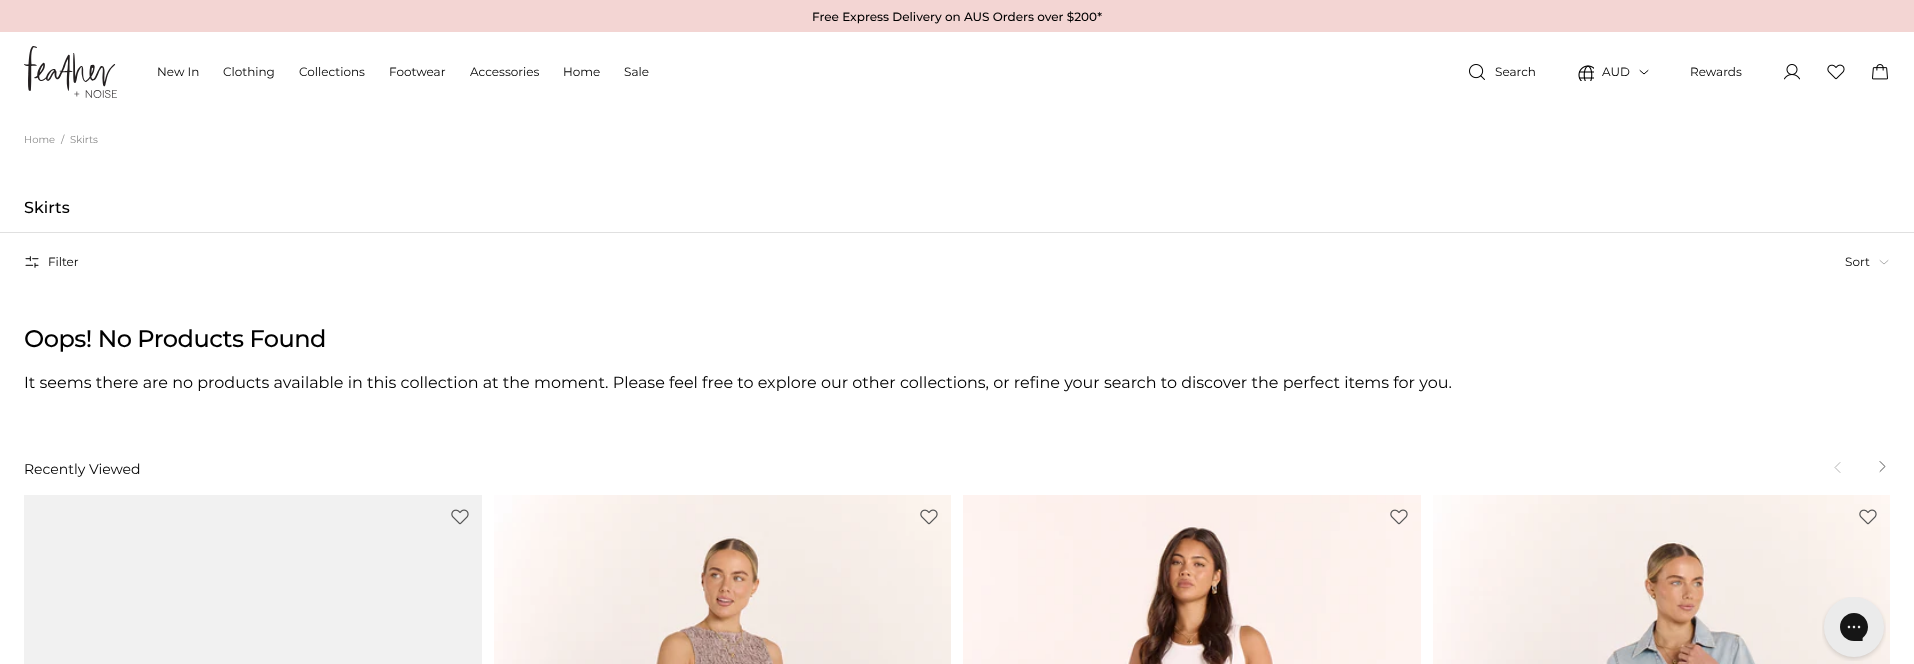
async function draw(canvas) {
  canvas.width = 1914;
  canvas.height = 664;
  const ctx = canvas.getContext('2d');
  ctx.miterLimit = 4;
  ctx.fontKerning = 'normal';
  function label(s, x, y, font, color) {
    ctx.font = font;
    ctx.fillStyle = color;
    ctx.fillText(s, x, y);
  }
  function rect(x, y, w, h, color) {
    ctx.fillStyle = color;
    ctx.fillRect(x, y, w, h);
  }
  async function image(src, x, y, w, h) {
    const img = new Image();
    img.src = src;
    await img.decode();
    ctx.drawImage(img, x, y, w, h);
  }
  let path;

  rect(0, 0, 1914, 664, '#fff');
  rect(0, 0, 1914, 32, '#f3d5d3');
  label('Free Express Delivery on AUS Orders over $200*', 812, 21, '500 12px Montserrat', '#000');
  await image('assets/img1.png', 24, 46, 93, 52);
  label('New In', 157, 76, '100 12px Montserrat', '#000');
  label('Clothing', 223, 76, '100 12px Montserrat', '#000');
  label('Collections', 299, 76, '100 12px Montserrat', '#000');
  label('Footwear', 389, 76, '100 12px Montserrat', '#000');
  label('Accessories', 470, 76, '100 12px Montserrat', '#000');
  label('Home', 563, 76, '100 12px Montserrat', '#000');
  label('Sale', 624, 76, '100 12px Montserrat', '#000');
  await image('assets/img2.png', 1469, 64, 16, 16);
  label('Search', 1495, 76, '100 12px Montserrat', '#000');
  await image('assets/img3.png', 1578, 65, 16, 16);
  label('AUD', 1602, 76, '100 12px Montserrat', '#000');
  path = new Path2D('M1648 70.5L1644 74L1640 70.5');
  ctx.strokeStyle = '#000';
  ctx.lineCap = 'round';
  ctx.lineJoin = 'round';
  ctx.stroke(path);
  label('Rewards', 1690, 76, '100 12px Montserrat', '#000');
  await image('assets/img4.png', 1784, 64, 16, 16);
  await image('assets/img5.png', 1827, 64, 18, 16);
  await image('assets/img6.png', 1872, 64, 16, 16);
  label('Home', 24, 143, '100 10px Montserrat', '#888');
  label('/', 61, 143, '100 10px Montserrat', '#888');
  label('Skirts', 70, 143, '100 10px Montserrat', '#888');
  label('Skirts', 24, 213, '500 16px Montserrat', '#000');
  rect(0, 232, 1914, 1, '#e0e0e0');
  await image('assets/img7.png', 25, 256, 14, 12);
  label('Filter', 48, 266, '100 12px Montserrat', '#000');
  label('Sort', 1845, 266, '100 12px Montserrat', '#000');
  path = new Path2D('M1888 260.5L1884 264L1880 260.5');
  ctx.strokeStyle = '#adadad';
  ctx.stroke(path);
  ctx.letterSpacing = '-0.5px';
  label('Oops! No Products Found', 24, 347, '500 24px Montserrat', '#000');
  ctx.letterSpacing = '0px';
  label('It seems there are no products available in this collection at the moment. Please feel free to explore our other collections, or refine your search to discover the perfect items for you.', 24, 388, '100 16px Montserrat', '#000');
  path = new Path2D('M1840 472.5L1835 467.5L1840 462.5');
  ctx.strokeStyle = '#b3b3b3';
  ctx.stroke(path);
  path = new Path2D('M1880 461.5L1885 466.5L1880 471.5');
  ctx.strokeStyle = '#555';
  ctx.stroke(path);
  rect(24, 495, 458, 169, '#f1f1f1');
  await image('assets/img8.png', 451, 509, 18, 16);
  await image('assets/img9.png', 494, 495, 457, 169);
  await image('assets/img10.png', 920, 509, 18, 16);
  await image('assets/img11.png', 963, 495, 458, 169);
  await image('assets/img12.png', 1390, 509, 18, 16);
  await image('assets/img13.png', 1433, 495, 457, 169);
  await image('assets/img14.png', 1859, 509, 18, 16);
  label('Recently Viewed', 24, 474, '100 14px Montserrat', '#000');
  await image('assets/img15.png', 1822, 597, 64, 64);
}

draw(document.querySelector('canvas'));
